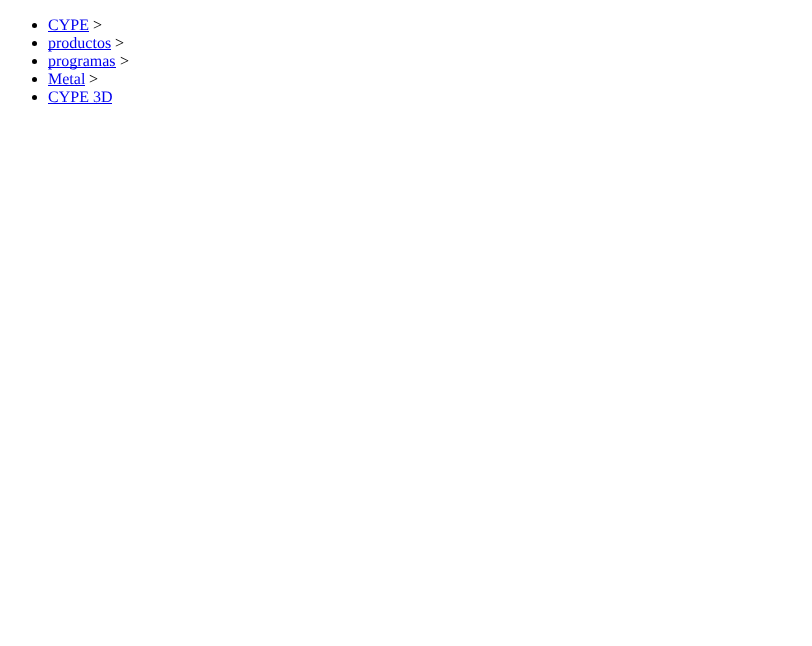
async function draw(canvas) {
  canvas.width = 812;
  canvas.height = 646;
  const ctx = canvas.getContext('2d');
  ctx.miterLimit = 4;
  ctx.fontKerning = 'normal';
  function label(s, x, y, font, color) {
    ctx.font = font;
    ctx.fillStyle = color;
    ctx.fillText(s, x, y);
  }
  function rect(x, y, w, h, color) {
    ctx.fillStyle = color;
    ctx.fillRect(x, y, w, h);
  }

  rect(0, 0, 812, 646, '#fff');
  ctx.fillStyle = '#000';
  ctx.beginPath();
  ctx.arc(34.5, 25.5, 2.5, 0, 2 * Math.PI);
  ctx.fill();
  label('CYPE', 48, 30, '16px Liberation Serif', '#00e');
  rect(48, 31, 41, 1, '#00e');
  label('>', 93, 30, '16px Liberation Serif', '#000');
  ctx.beginPath();
  ctx.arc(34.5, 43.5, 2.5, 0, 2 * Math.PI);
  ctx.fill();
  rect(48, 49, 63, 1, '#00e');
  label('productos', 48, 48, '16px Liberation Serif', '#00e');
  label('>', 115, 48, '16px Liberation Serif', '#000');
  ctx.beginPath();
  ctx.arc(34.5, 61.5, 2.5, 0, 2 * Math.PI);
  ctx.fill();
  rect(48, 67, 68, 1, '#00e');
  label('programas', 48, 66, '16px Liberation Serif', '#00e');
  label('>', 120, 66, '16px Liberation Serif', '#000');
  ctx.beginPath();
  ctx.arc(34.5, 79.5, 2.5, 0, 2 * Math.PI);
  ctx.fill();
  label('Metal', 48, 84, '16px Liberation Serif', '#00e');
  rect(48, 85, 37, 1, '#00e');
  label('>', 89, 84, '16px Liberation Serif', '#000');
  ctx.beginPath();
  ctx.arc(34.5, 97.5, 2.5, 0, 2 * Math.PI);
  ctx.fill();
  label('CYPE 3D', 48, 102, '16px Liberation Serif', '#00e');
  rect(48, 103, 64, 1, '#00e');
}

draw(document.querySelector('canvas'));
